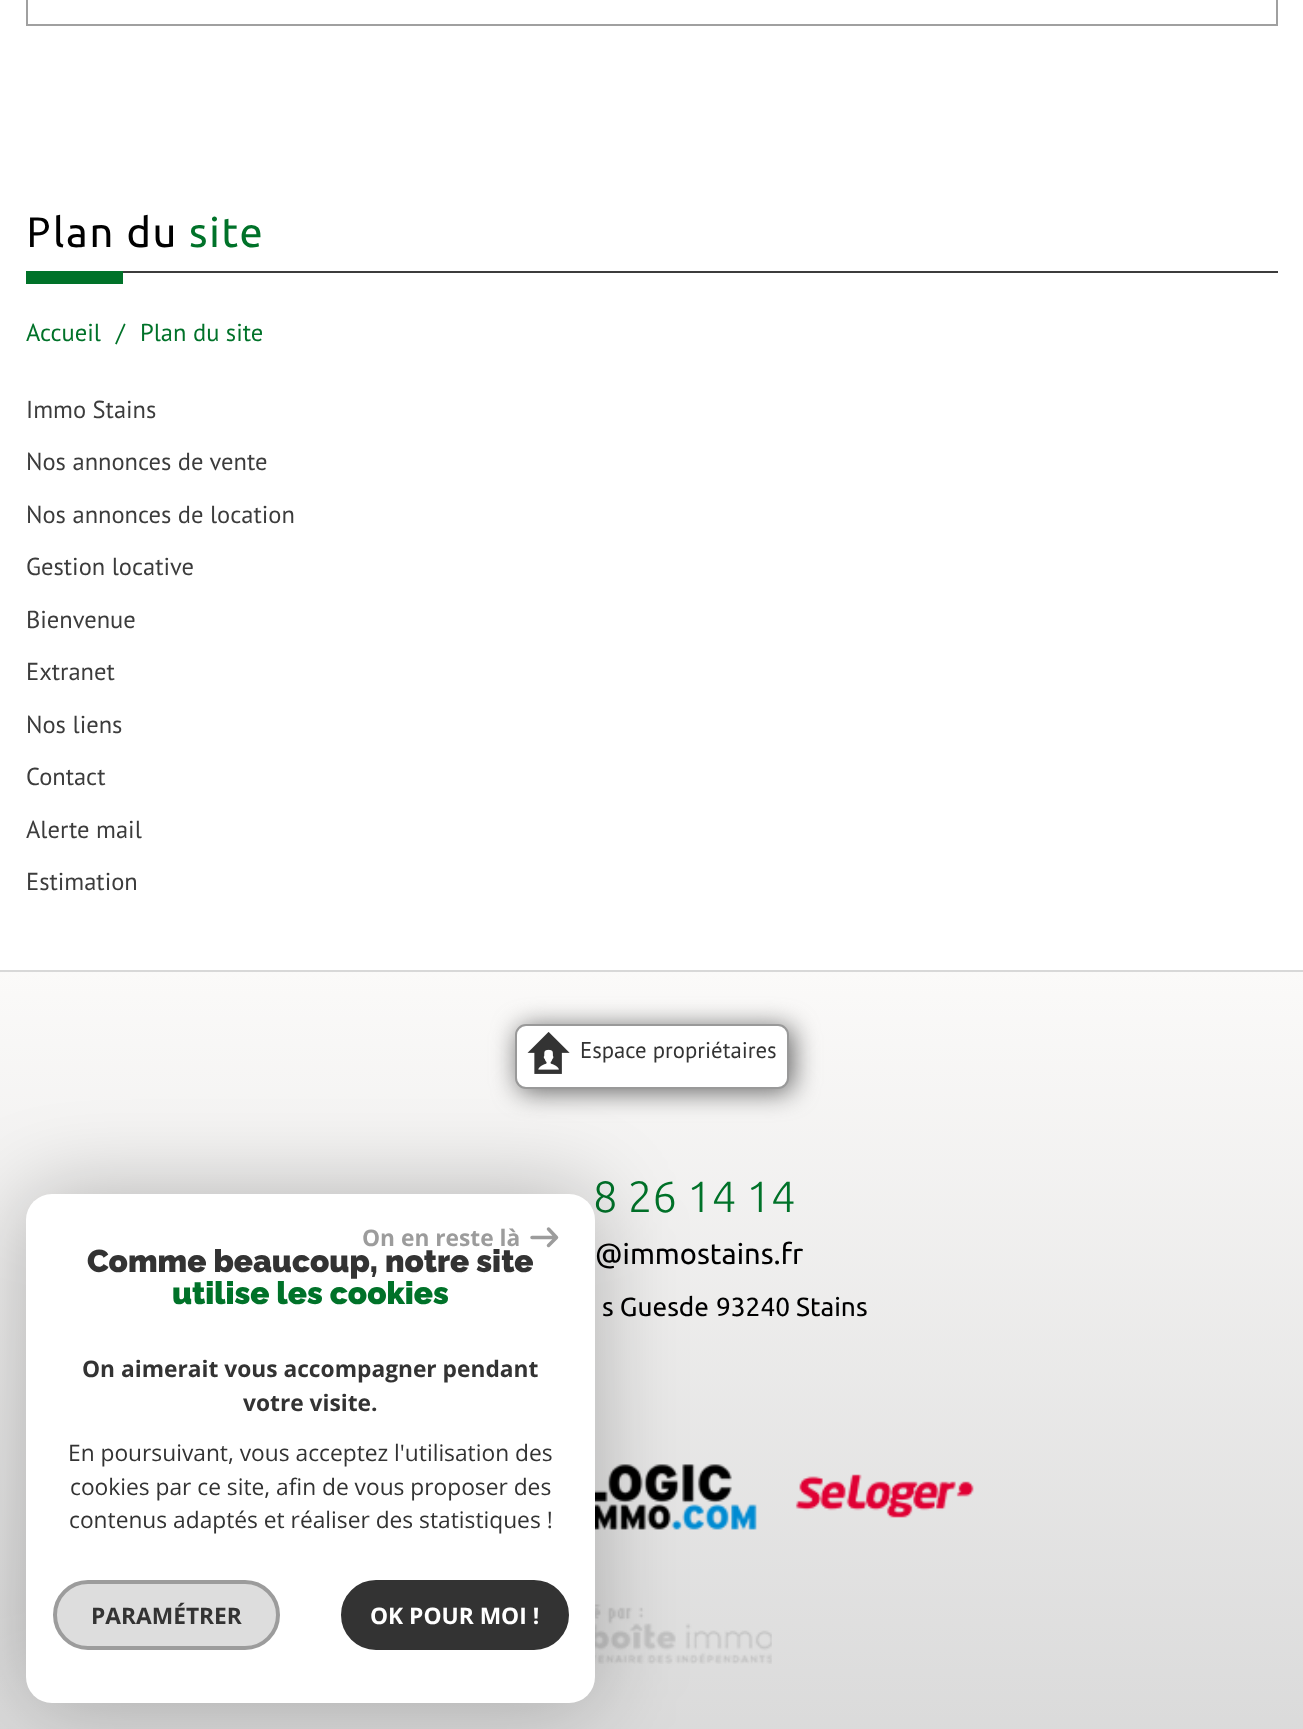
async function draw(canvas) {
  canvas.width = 1303;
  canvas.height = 1729;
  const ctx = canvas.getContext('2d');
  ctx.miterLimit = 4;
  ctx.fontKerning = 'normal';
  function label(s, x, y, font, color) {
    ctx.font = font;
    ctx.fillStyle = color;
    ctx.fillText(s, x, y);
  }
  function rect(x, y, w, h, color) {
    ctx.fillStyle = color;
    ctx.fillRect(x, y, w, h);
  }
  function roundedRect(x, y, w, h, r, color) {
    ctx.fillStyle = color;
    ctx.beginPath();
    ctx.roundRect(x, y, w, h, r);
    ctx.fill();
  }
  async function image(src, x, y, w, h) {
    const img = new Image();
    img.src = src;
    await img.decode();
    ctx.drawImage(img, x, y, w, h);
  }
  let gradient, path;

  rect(0, 0, 1303, 1729, '#fff');
  ctx.strokeStyle = '#a0a0a0';
  ctx.lineWidth = 2;
  ctx.strokeRect(27, -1, 1250, 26);
  rect(123, 271, 1155, 2, '#3c3c3c');
  ctx.letterSpacing = '1.75px';
  label('P', 26, 247, '41.5px Noto Sans', '#000');
  label('lan du', 53, 247, '41.5px Ubuntu', '#000');
  label('site', 189, 247, '41.5px Ubuntu', '#007229');
  rect(26, 271, 97, 13, '#007229');
  ctx.letterSpacing = '0px';
  label('Accueil', 26, 341, '24.5px PT Sans', '#007229');
  label('/', 116, 341, '24.5px PT Sans', '#007229');
  label('Plan du site', 140, 341, '24.5px PT Sans', '#007229');
  label('Immo Stains', 26, 418, '24.5px PT Sans', '#3c3c3c');
  label('Nos annonces de vente', 26, 470, '24.5px PT Sans', '#3c3c3c');
  label('Nos annonces de location', 26, 523, '24.5px PT Sans', '#3c3c3c');
  label('Gestion locative', 26, 575, '24.5px PT Sans', '#3c3c3c');
  label('Bienvenue', 26, 628, '24.5px PT Sans', '#3c3c3c');
  label('Extranet', 26, 680, '24.5px PT Sans', '#3c3c3c');
  label('Nos liens', 26, 733, '24.5px PT Sans', '#3c3c3c');
  label('Contact', 26, 785, '24.5px PT Sans', '#3c3c3c');
  label('Alerte mail', 26, 838, '24.5px PT Sans', '#3c3c3c');
  label('Estimation', 26, 890, '24.5px PT Sans', '#3c3c3c');
  gradient = ctx.createLinearGradient(652, 971, 652, 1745);
  gradient.addColorStop(0, '#fbfaf9');
  gradient.addColorStop(1, '#dadada');
  ctx.fillStyle = gradient;
  ctx.fillRect(0, 972, 1303, 757);
  rect(0, 970, 1303, 2, '#d8d8d8');
  ctx.fillStyle = '#656565';
  ctx.filter = 'blur(13px)';
  ctx.beginPath();
  ctx.roundRect(518, 1027, 275, 65, 11);
  ctx.fill();
  ctx.filter = 'none';
  ctx.fillStyle = '#fff';
  ctx.beginPath();
  ctx.roundRect(516, 1025, 272, 63, 10);
  ctx.fill();
  ctx.strokeStyle = '#999';
  ctx.stroke();
  await image('assets/img1.png', 527, 1032, 43, 42);
  label('Espace propriétaires', 580, 1058, '22.75px PT Sans', '#333');
  label('8 26 14 14', 593, 1212, '300 43.75px Ubuntu', '#007229');
  label('@immostains.fr', 595, 1264, '29px Ubuntu', '#000');
  label('s Guesde', 602, 1316, '26.25px Ubuntu', '#000');
  label('93240', 716, 1316, '26.25px Ubuntu', '#000');
  label('Stains', 796, 1316, '26.25px Ubuntu', '#000');
  await image('assets/img2.png', 595, 1464, 162, 66);
  await image('assets/img3.png', 795, 1474, 179, 44);
  await image('assets/img4.png', 595, 1604, 177, 60);
  ctx.fillStyle = '#00000040';
  ctx.filter = 'blur(44px)';
  ctx.beginPath();
  ctx.roundRect(26, 1194, 569, 509, 26);
  ctx.fill();
  ctx.filter = 'none';
  roundedRect(26, 1194, 569, 509, 26, '#fff');
  label('On en reste là', 362, 1246, 'bold 22.75px Open Sans', '#9c9c9c');
  path = new Path2D('M532 1237.5H556.5M548.5 1229L556.5 1237.5M548.5 1245.5L556.5 1237.5');
  ctx.strokeStyle = '#9c9c9c';
  ctx.lineWidth = 3.5;
  ctx.lineCap = 'round';
  ctx.stroke(path);
  label('Comme beaucoup, notre site', 87, 1272, '100 31.5px Raleway', '#333');
  label('utilise les cookies', 172, 1304, '100 31.5px Raleway', '#007229');
  label('On aimerait vous accompagner pendant', 82, 1377, 'bold 22.75px Open Sans', '#333');
  label('votre visite.', 243, 1411, 'bold 22.75px Open Sans', '#333');
  label('En poursuivant, vous acceptez l\'utilisation des', 68, 1461, '22.75px Open Sans', '#333');
  label('cookies par ce site, afin de vous proposer des', 70, 1495, '22.75px Open Sans', '#333');
  label('contenus adaptés et réaliser des statistiques !', 69, 1528, '22.75px Open Sans', '#333');
  ctx.fillStyle = '#ddd';
  ctx.beginPath();
  ctx.roundRect(55, 1582, 223, 66, 33);
  ctx.fill();
  ctx.lineWidth = 4;
  ctx.stroke();
  label('PARAMÉTRER', 91, 1624, 'bold 22.75px Open Sans', '#333');
  ctx.beginPath();
  ctx.roundRect(343, 1582, 224, 66, 33);
  ctx.fill();
  ctx.strokeStyle = '#333';
  ctx.stroke();
  label('OK POUR MOI !', 370, 1624, 'bold 22.75px Open Sans', '#fff');
}

draw(document.querySelector('canvas'));
